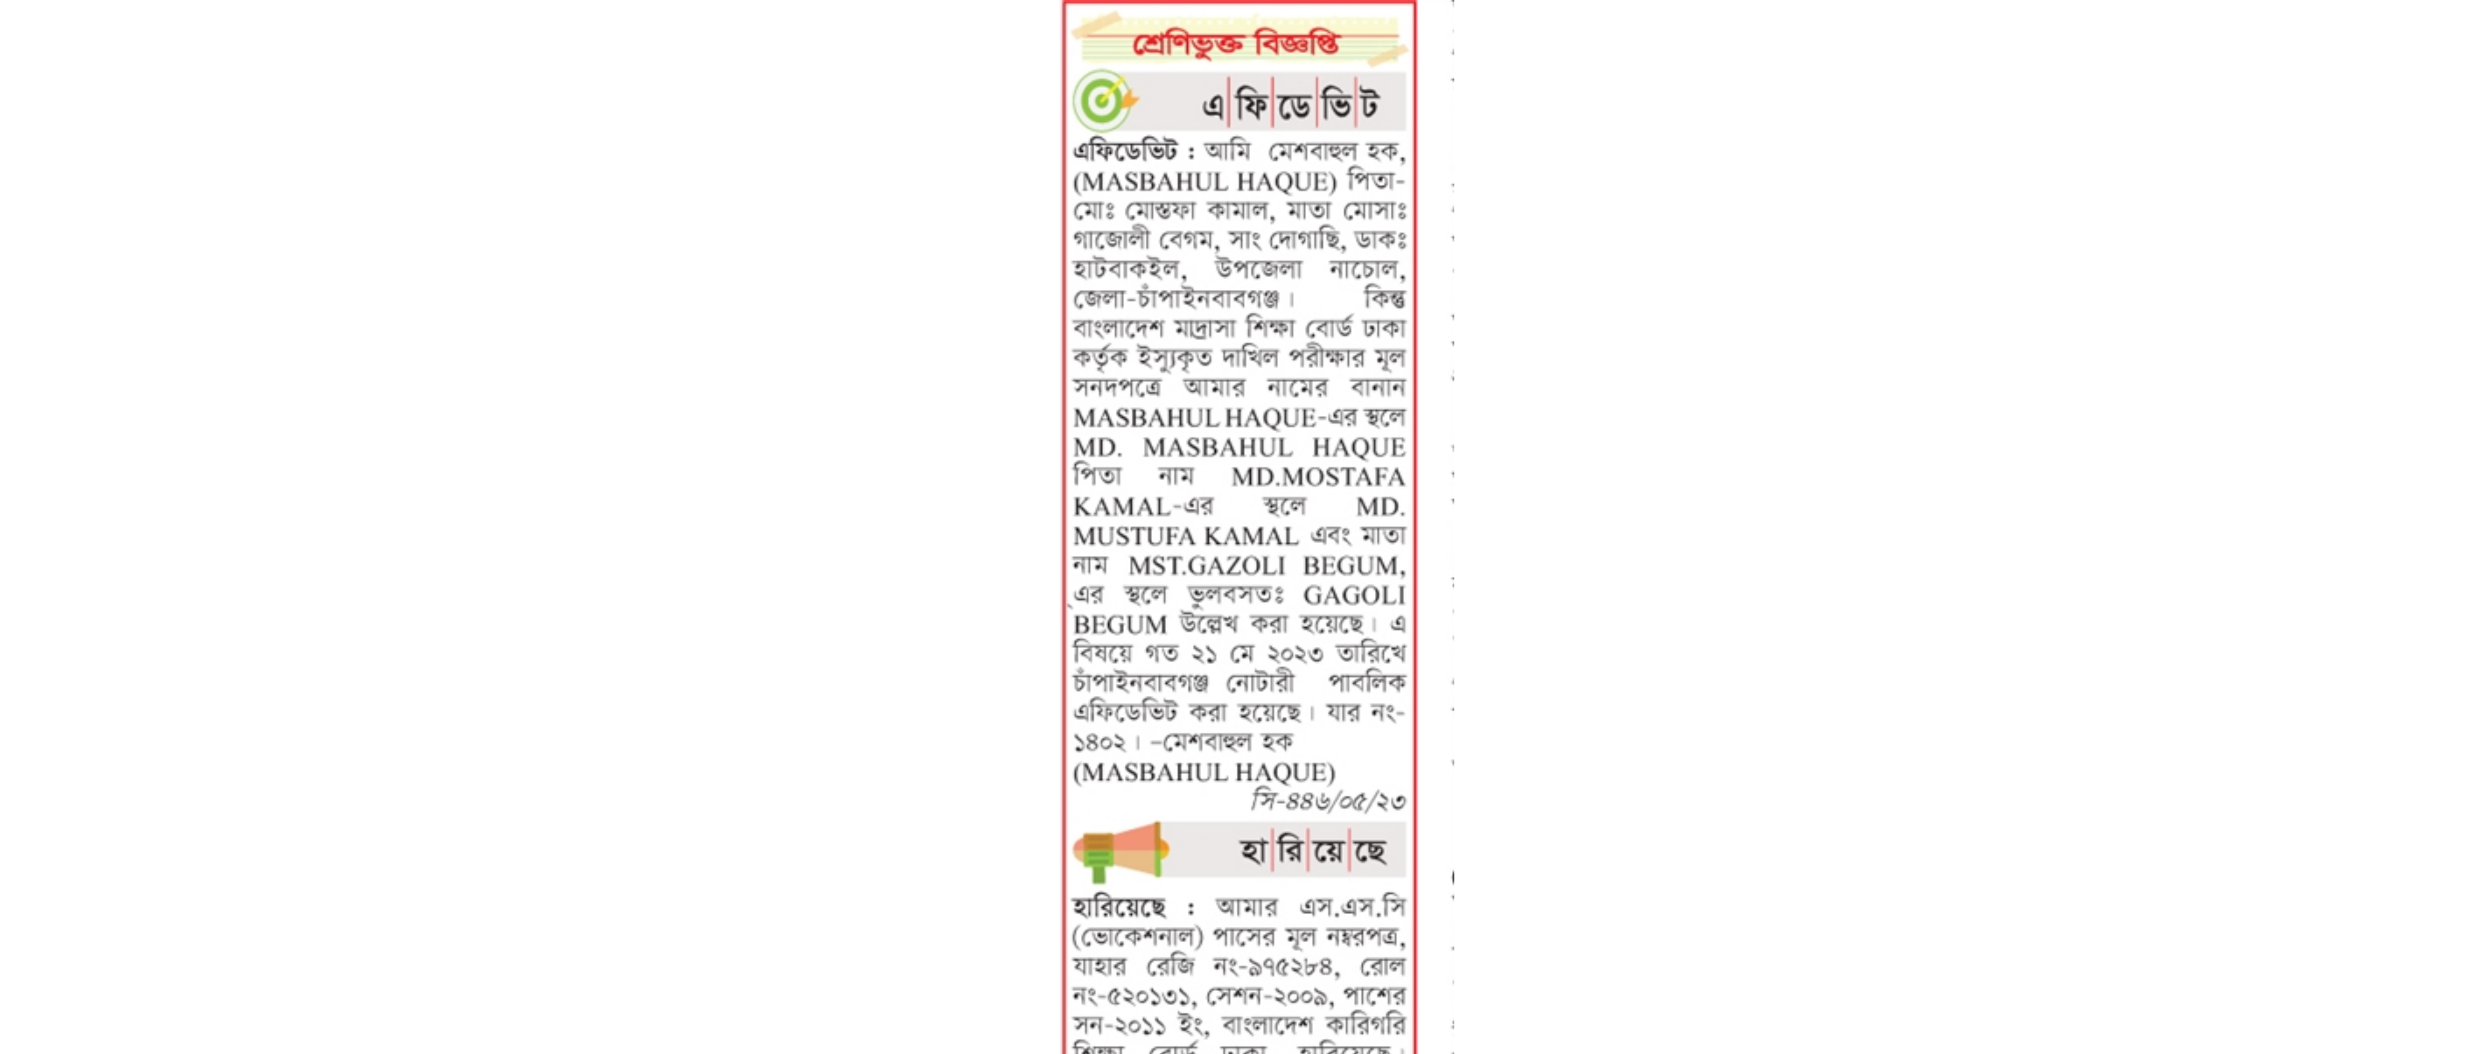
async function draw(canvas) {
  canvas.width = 2480;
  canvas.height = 1054;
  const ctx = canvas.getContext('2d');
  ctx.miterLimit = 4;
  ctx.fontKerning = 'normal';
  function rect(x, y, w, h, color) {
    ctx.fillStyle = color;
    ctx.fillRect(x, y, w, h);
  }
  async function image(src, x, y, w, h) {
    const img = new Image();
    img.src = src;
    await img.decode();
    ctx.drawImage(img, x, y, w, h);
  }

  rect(0, 0, 2480, 1054, '#fff');
  await image('assets/img1.png', 1059, 0, 396, 1054);
}

draw(document.querySelector('canvas'));
